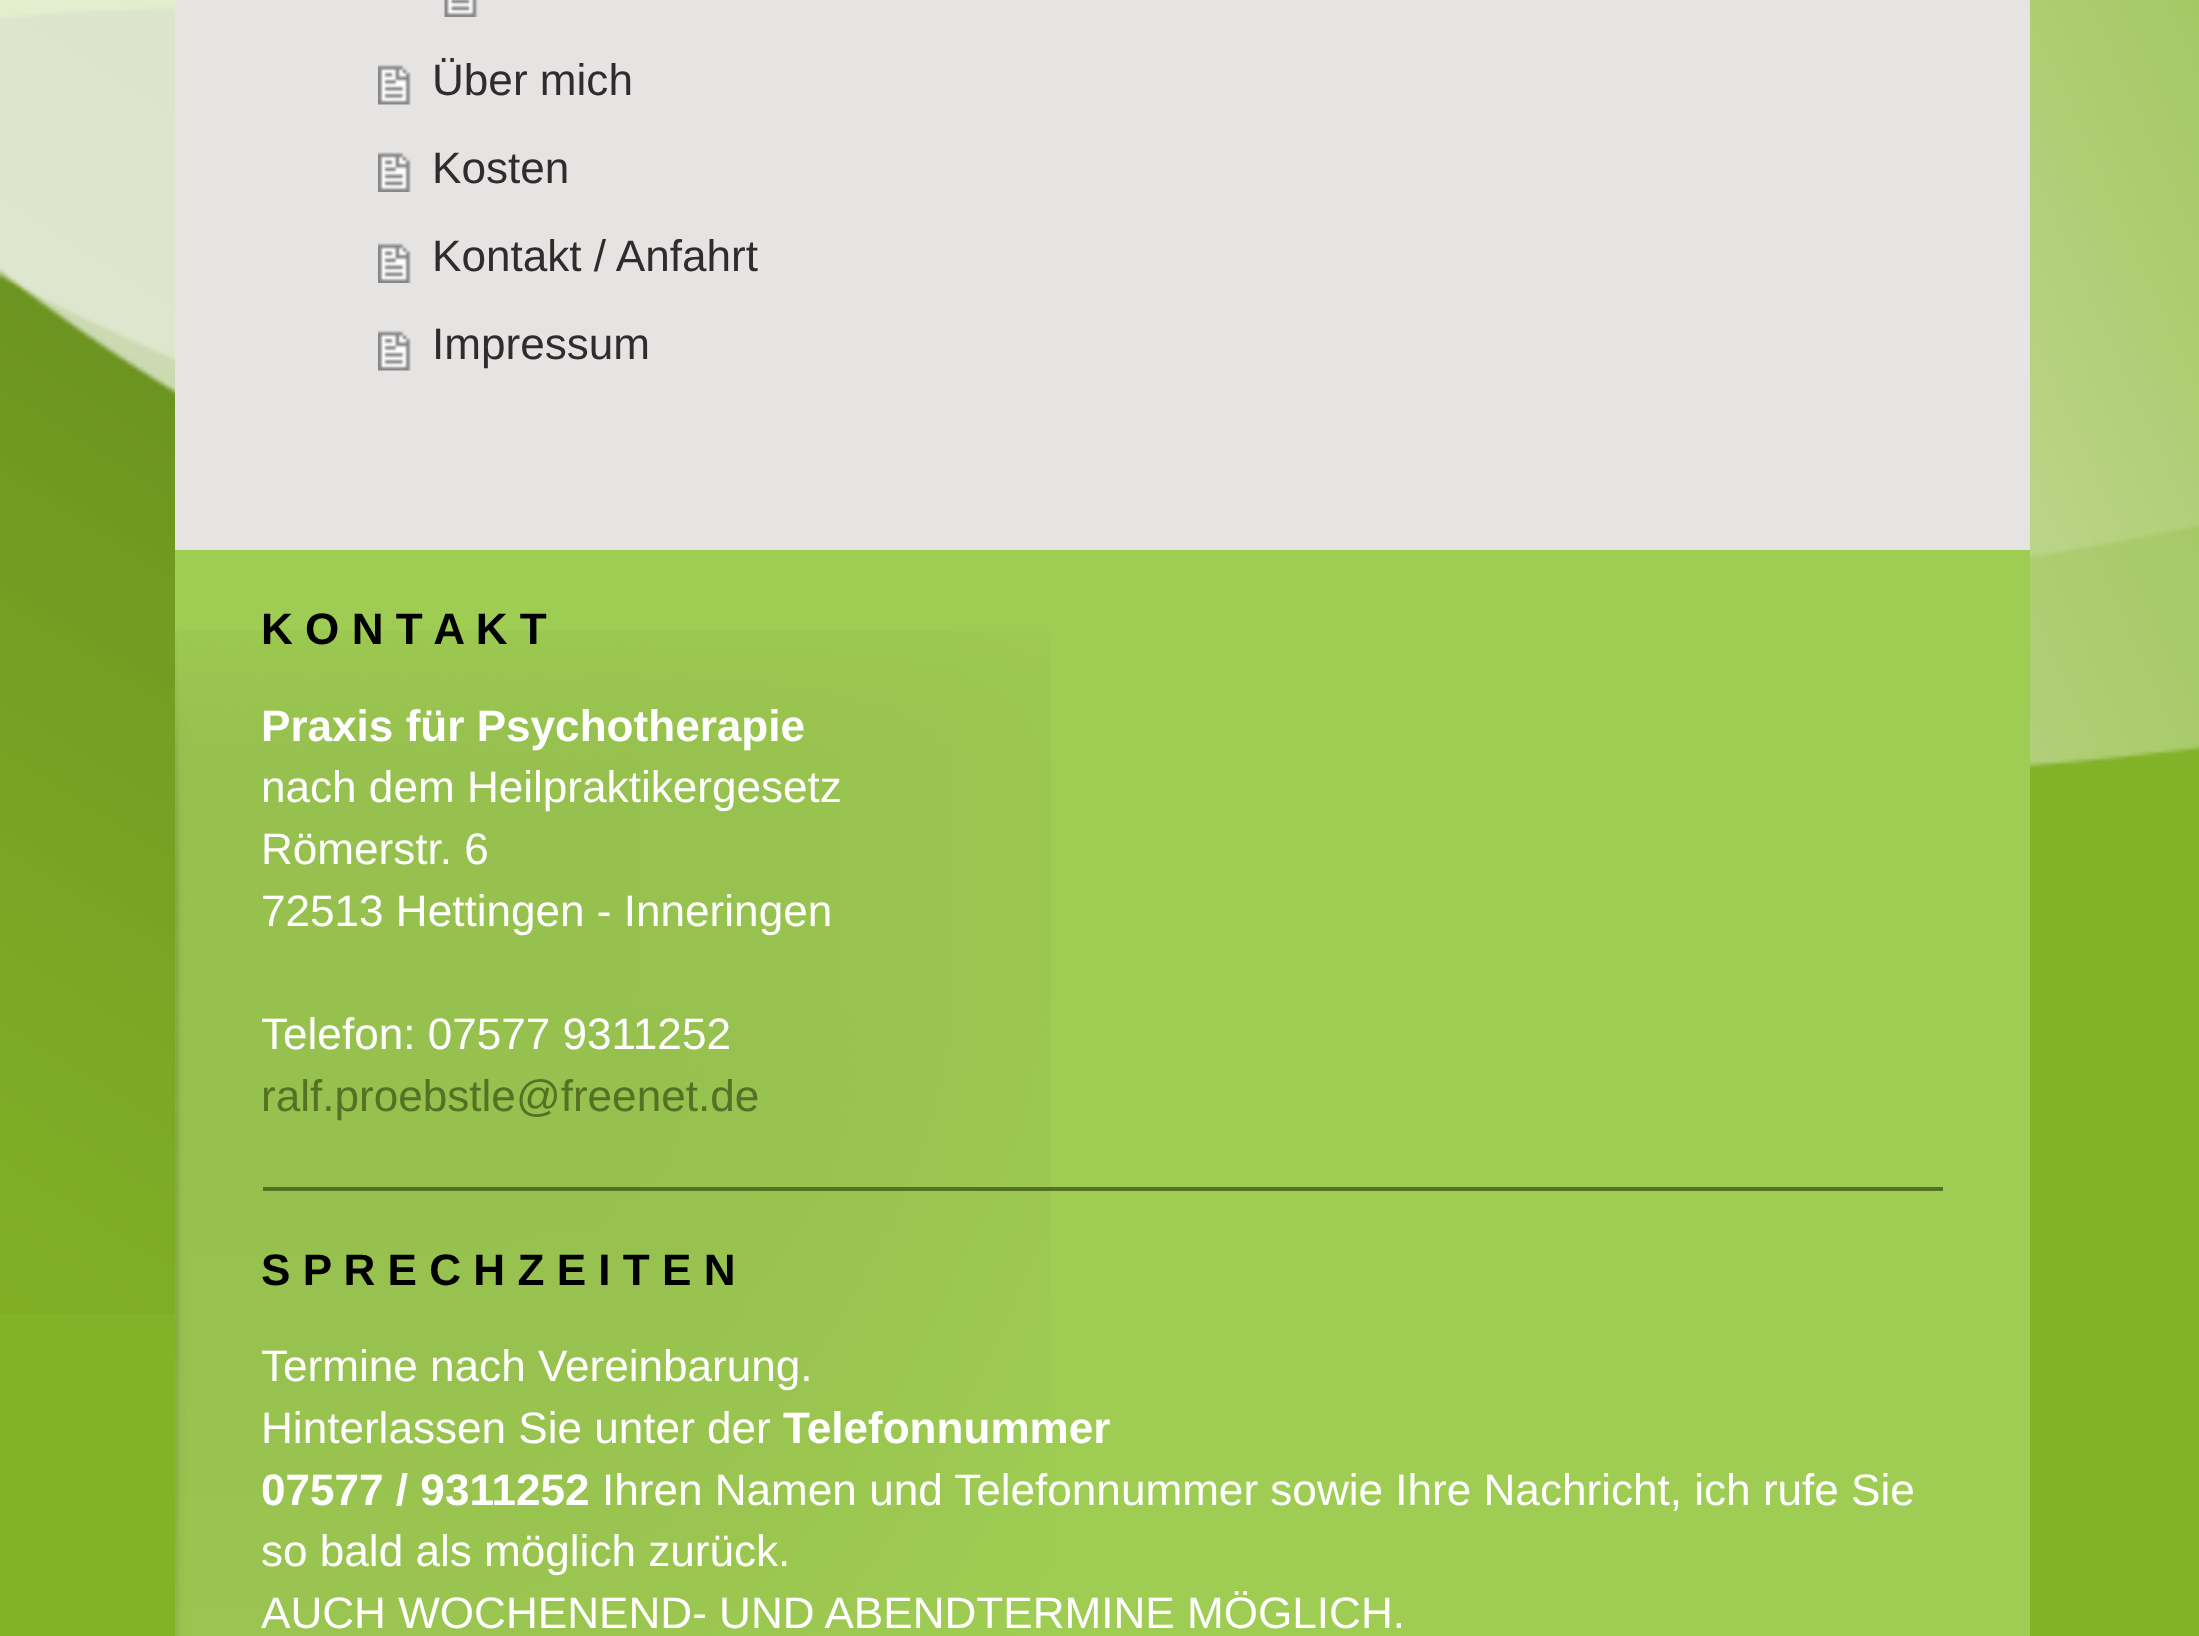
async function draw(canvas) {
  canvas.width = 2199;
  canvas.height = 1636;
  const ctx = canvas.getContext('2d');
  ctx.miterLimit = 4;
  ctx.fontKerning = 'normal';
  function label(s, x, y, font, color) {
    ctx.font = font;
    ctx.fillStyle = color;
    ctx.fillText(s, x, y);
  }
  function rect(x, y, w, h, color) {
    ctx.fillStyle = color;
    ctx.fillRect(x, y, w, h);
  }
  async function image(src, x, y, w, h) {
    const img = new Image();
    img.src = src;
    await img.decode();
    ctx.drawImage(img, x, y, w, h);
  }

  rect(0, 0, 2199, 1636, '#82b227');
  await image('assets/img1.png', 0, 0, 2199, 1314);
  rect(175, 0, 1855, 550, '#e6e3e3');
  await image('assets/img2.png', 444, 0, 34, 17);
  await image('assets/img3.png', 378, 64, 33, 41);
  label('Über mich', 432, 95, '44.1px Liberation Sans', '#2e2c2c');
  await image('assets/img4.png', 378, 152, 33, 40);
  label('Kosten', 432, 183, '44.1px Liberation Sans', '#2e2c2c');
  await image('assets/img4.png', 378, 243, 33, 40);
  label('Kontakt / Anfahrt', 432, 271, '44.1px Liberation Sans', '#2e2c2c');
  await image('assets/img3.png', 378, 330, 33, 41);
  label('Impressum', 432, 359, '44.1px Liberation Sans', '#2e2c2c');
  rect(175, 550, 1855, 1086, '#9fcc53');
  await image('assets/img5.png', 175, 631, 876, 1005);
  label('K O N T A K T', 261, 644, 'bold 44.1px Liberation Sans', '#000');
  label('Praxis für Psychotherapie', 261, 741, 'bold 44.1px Liberation Sans', '#fff');
  label('nach dem Heilpraktikergesetz', 261, 802, '44.1px Liberation Sans', '#fff');
  label('Römerstr. 6', 261, 864, '44.1px Liberation Sans', '#fff');
  label('72513 Hettingen - Inneringen', 261, 926, '44.1px Liberation Sans', '#fff');
  label('Telefon: 07577 9311252', 261, 1049, '44.1px Liberation Sans', '#fff');
  label('ralf.proebstle@freenet.de', 261, 1111, '44.1px Liberation Sans', '#557124');
  rect(263, 1187, 1680, 4, '#557124');
  label('S P R E C H Z E I T E N', 261, 1285, 'bold 44.1px Liberation Sans', '#000');
  label('Termine nach Vereinbarung.', 261, 1381, '44.1px Liberation Sans', '#fff');
  label('Hinterlassen Sie unter der', 261, 1443, '44.1px Liberation Sans', '#fff');
  label('Telefonnummer', 783, 1443, 'bold 44.1px Liberation Sans', '#fff');
  label('07577 / 9311252', 261, 1505, 'bold 44.1px Liberation Sans', '#fff');
  label('Ihren Namen und Telefonnummer sowie Ihre Nachricht, ich rufe Sie', 602, 1505, '44.1px Liberation Sans', '#fff');
  label('so bald als möglich zurück.', 261, 1566, '44.1px Liberation Sans', '#fff');
  label('AUCH WOCHENEND- UND ABENDTERMINE MÖGLICH.', 261, 1628, '44.1px Liberation Sans', '#fff');
}

draw(document.querySelector('canvas'));
